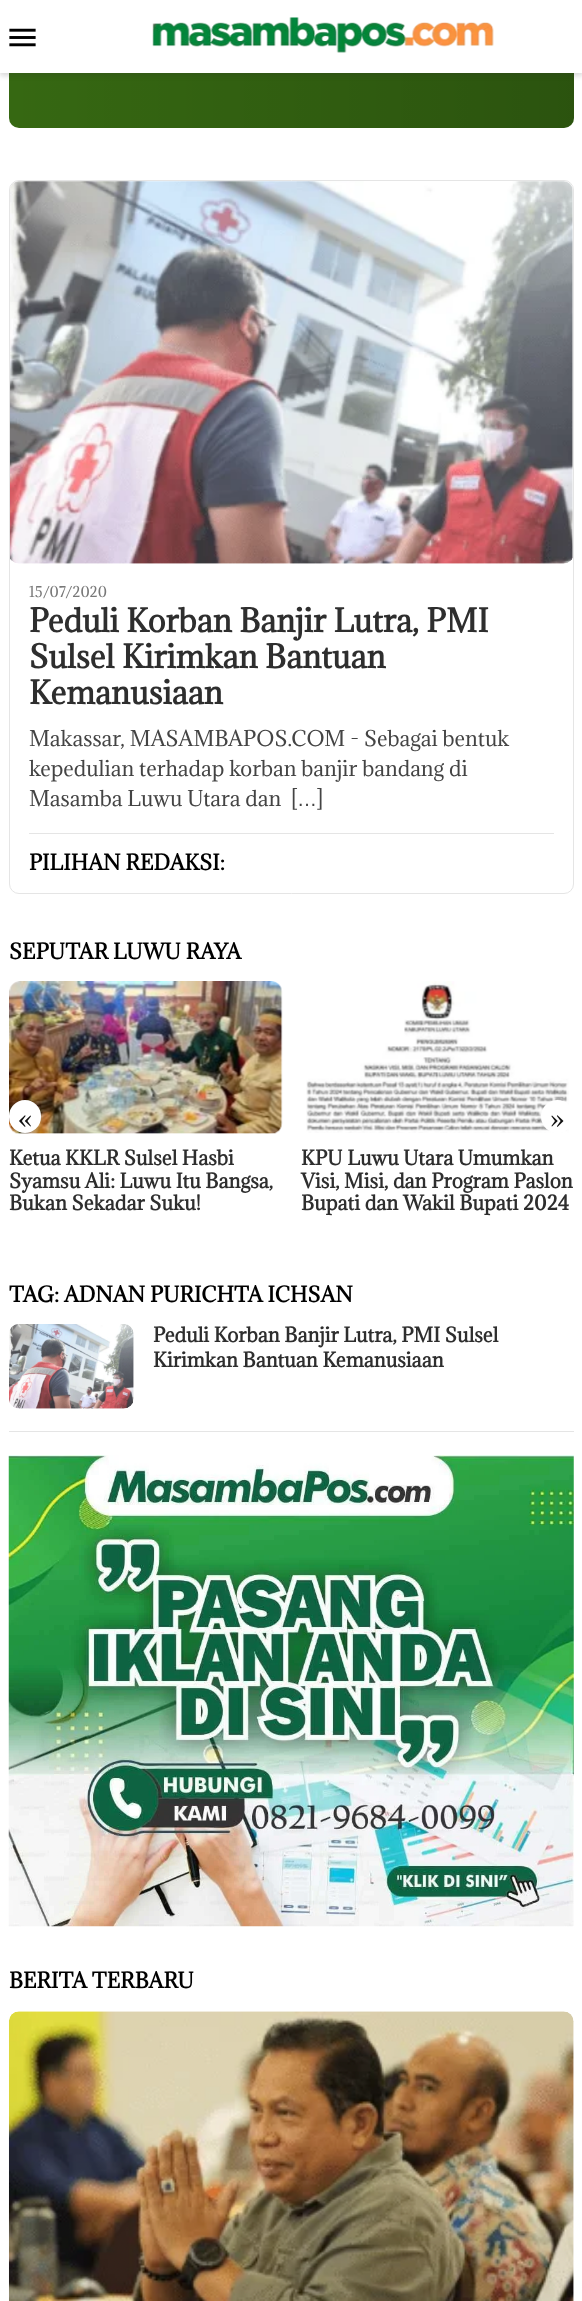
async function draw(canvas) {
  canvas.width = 582;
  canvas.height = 2301;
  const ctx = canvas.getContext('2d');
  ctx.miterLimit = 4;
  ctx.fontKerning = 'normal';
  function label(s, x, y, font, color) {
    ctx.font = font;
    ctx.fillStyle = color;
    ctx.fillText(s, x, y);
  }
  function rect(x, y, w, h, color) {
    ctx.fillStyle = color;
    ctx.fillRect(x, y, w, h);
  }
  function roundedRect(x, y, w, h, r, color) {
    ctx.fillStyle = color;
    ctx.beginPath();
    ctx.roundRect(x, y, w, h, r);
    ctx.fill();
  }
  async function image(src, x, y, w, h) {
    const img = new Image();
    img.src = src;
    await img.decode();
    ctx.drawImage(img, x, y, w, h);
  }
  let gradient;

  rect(0, 0, 582, 2301, '#fff');
  ctx.fillStyle = '#366812';
  ctx.beginPath();
  ctx.roundRect(9, 73, 565, 55, [0, 0, 10, 10]);
  ctx.fill();
  gradient = ctx.createLinearGradient(9, 100, 574, 100);
  gradient.addColorStop(0, '#00000000');
  gradient.addColorStop(1, '#00000033');
  ctx.fillStyle = gradient;
  ctx.beginPath();
  ctx.roundRect(9, 73, 565, 55, [0, 0, 10, 10]);
  ctx.fill();
  ctx.fillStyle = '#3434342e';
  ctx.filter = 'blur(2.5px)';
  ctx.beginPath();
  ctx.rect(0, 4, 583, 72);
  ctx.fill();
  ctx.filter = 'none';
  rect(0, 0, 582, 73, '#fff');
  await image('assets/img1.png', 9, 28, 27, 19);
  await image('assets/img2.png', 152, 17, 342, 36);
  ctx.beginPath();
  ctx.roundRect(9.5, 180.5, 564, 713, 9.5);
  ctx.strokeStyle = '#e5e5e5';
  ctx.stroke();
  await image('assets/img3.png', 10, 181, 563, 383);
  rect(29, 833, 525, 1, '#e5e5e5');
  label('15/07/2020', 29, 597, '13.75px Adamina', '#787878');
  label('Peduli Korban Banjir Lutra, PMI', 29, 632, 'bold 30px Adamina', '#2e2e2e');
  label('Sulsel Kirimkan Bantuan', 29, 668, 'bold 30px Adamina', '#2e2e2e');
  label('Kemanusiaan', 29, 704, 'bold 30px Adamina', '#2e2e2e');
  label('Makassar, MASAMBAPOS.COM - Sebagai bentuk', 29, 746, '20px Adamina', '#444');
  label('kepedulian terhadap korban banjir bandang di', 29, 776, '20px Adamina', '#444');
  label('Masamba Luwu Utara dan  [', 29, 806, '20px Adamina', '#444');
  label('…', 297, 806, '20px Liberation Sans', '#444');
  label(']', 317, 806, '20px Adamina', '#444');
  label('PILIHAN REDAKSI:', 29, 870, 'bold 20px Adamina', '#000');
  label('SEPUTAR LUWU RAYA', 9, 959, 'bold 20px Adamina', '#000');
  await image('assets/img4.png', 9, 981, 274, 153);
  roundedRect(9, 1100, 32, 33, 16, '#fff');
  label('«', 18, 1128, '28px Adamina', '#111');
  await image('assets/img5.png', 306, 981, 263, 152);
  ctx.fillStyle = '#fff';
  ctx.beginPath();
  ctx.arc(557.5, 1116.5, 16.5, 0, 2 * Math.PI);
  ctx.fill();
  label('»', 550, 1128, '28px Adamina', '#111');
  label('Ketua KKLR Sulsel Hasbi', 9, 1165, 'bold 18.75px Adamina', '#2e2e2e');
  label('Syamsu Ali: Luwu Itu Bangsa,', 9, 1188, 'bold 18.75px Adamina', '#2e2e2e');
  label('Bukan Sekadar Suku!', 9, 1210, 'bold 18.75px Adamina', '#2e2e2e');
  label('KPU Luwu Utara Umumkan', 301, 1165, 'bold 18.75px Adamina', '#2e2e2e');
  label('Visi, Misi, dan Program Paslon', 301, 1188, 'bold 18.75px Adamina', '#2e2e2e');
  label('Bupati dan Wakil Bupati 2024', 301, 1210, 'bold 18.75px Adamina', '#2e2e2e');
  label('TAG: ADNAN PURICHTA ICHSAN', 9, 1302, 'bold 20px Adamina', '#000');
  rect(9, 1431, 565, 1, '#e5e5e5');
  await image('assets/img6.png', 9, 1324, 125, 85);
  label('Peduli Korban Banjir Lutra, PMI Sulsel', 153, 1342, 'bold 18.75px Adamina', '#2e2e2e');
  label('Kirimkan Bantuan Kemanusiaan', 153, 1367, 'bold 18.75px Adamina', '#2e2e2e');
  await image('assets/img7.png', 8, 1455, 566, 472);
  label('BERITA TERBARU', 9, 1988, 'bold 20px Adamina', '#000');
  await image('assets/img8.png', 8, 2011, 566, 290);
}

draw(document.querySelector('canvas'));
